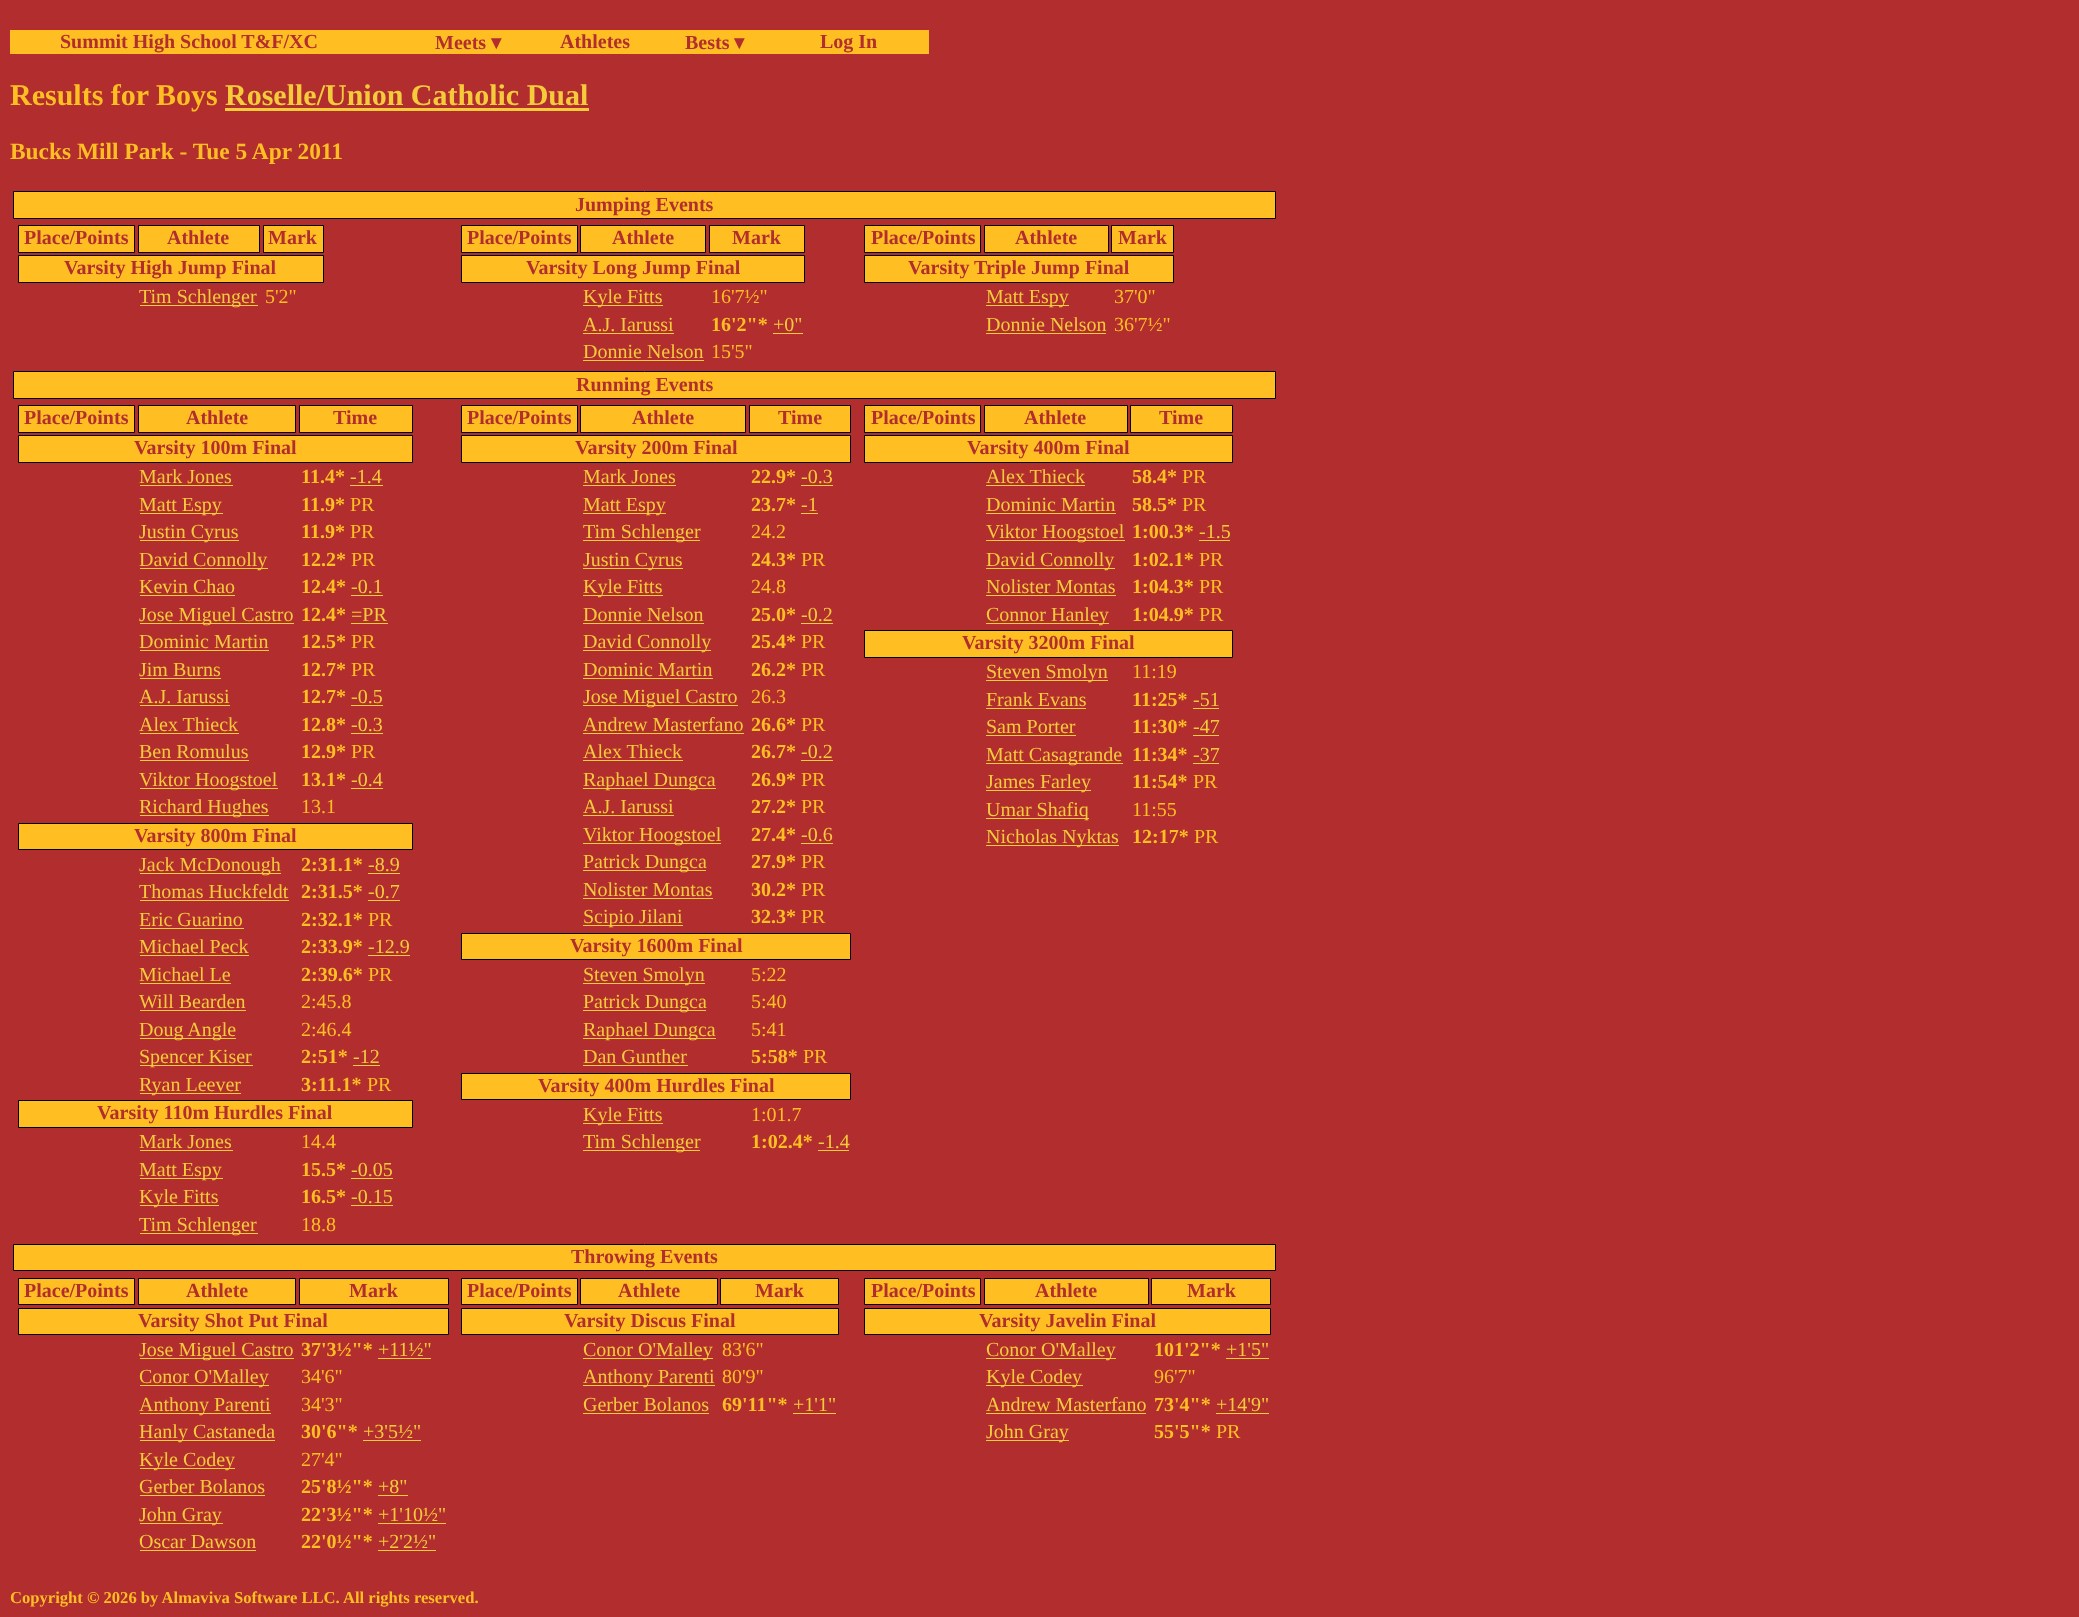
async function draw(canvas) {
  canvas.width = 2079;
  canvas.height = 1617;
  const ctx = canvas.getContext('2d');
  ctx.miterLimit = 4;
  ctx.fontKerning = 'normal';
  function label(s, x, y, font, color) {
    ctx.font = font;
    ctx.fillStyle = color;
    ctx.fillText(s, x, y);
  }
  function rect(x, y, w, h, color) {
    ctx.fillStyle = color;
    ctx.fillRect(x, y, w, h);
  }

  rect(0, 0, 2079, 1617, '#b22e2e');
  rect(10, 30, 919, 24, '#ffbf23');
  label('Summit High School T&F/XC', 60, 48, 'bold 20px Liberation Serif', '#b22e2e');
  label('Meets', 435, 49, 'bold 20px Liberation Serif', '#b22e2e');
  label('▾', 491, 49, 'bold 20px DejaVu Sans', '#b22e2e');
  label('Athletes', 560, 48, 'bold 20px Liberation Serif', '#b22e2e');
  label('Bests', 685, 49, 'bold 20px Liberation Serif', '#b22e2e');
  label('▾', 734, 49, 'bold 20px DejaVu Sans', '#b22e2e');
  label('Log In', 820, 48, 'bold 20px Liberation Serif', '#b22e2e');
  label('Results for Boys', 10, 105, 'bold 30px Liberation Serif', '#ffbf23');
  label('Roselle/Union Catholic Dual', 225, 105, 'bold 30px Liberation Serif', '#f5cb3b');
  rect(225, 108, 364, 3, '#f5cb3b');
  label('Bucks Mill Park - Tue 5 Apr 2011', 10, 159, 'bold 23.4px Liberation Serif', '#ffbf23');
  ctx.beginPath();
  ctx.rect(13.5, 191.5, 1262, 27);
  ctx.fill();
  ctx.strokeStyle = '#000';
  ctx.stroke();
  label('Jumping Events', 575, 211, 'bold 20px Liberation Serif', '#b22e2e');
  ctx.fillStyle = '#ffbf23';
  ctx.beginPath();
  ctx.rect(18.5, 225.5, 116, 27);
  ctx.fill();
  ctx.stroke();
  label('Place/Points', 24, 244, 'bold 20px Liberation Serif', '#b22e2e');
  ctx.fillStyle = '#ffbf23';
  ctx.beginPath();
  ctx.rect(138.5, 225.5, 121, 27);
  ctx.fill();
  ctx.stroke();
  label('Athlete', 167, 244, 'bold 20px Liberation Serif', '#b22e2e');
  ctx.fillStyle = '#ffbf23';
  ctx.beginPath();
  ctx.rect(263.5, 225.5, 60, 27);
  ctx.fill();
  ctx.stroke();
  label('Mark', 268, 244, 'bold 20px Liberation Serif', '#b22e2e');
  ctx.fillStyle = '#ffbf23';
  ctx.beginPath();
  ctx.rect(18.5, 255.5, 305, 27);
  ctx.fill();
  ctx.stroke();
  label('Varsity High Jump Final', 64, 274, 'bold 20px Liberation Serif', '#b22e2e');
  rect(140, 305, 118, 1, '#f5cb3b');
  label('Tim Schlenger', 139, 303, '20px Liberation Serif', '#f5cb3b');
  label('5\'2"', 265, 303, '20px Liberation Serif', '#ffbf23');
  ctx.beginPath();
  ctx.rect(461.5, 225.5, 116, 27);
  ctx.fill();
  ctx.stroke();
  label('Place/Points', 467, 244, 'bold 20px Liberation Serif', '#b22e2e');
  ctx.fillStyle = '#ffbf23';
  ctx.beginPath();
  ctx.rect(580.5, 225.5, 125, 27);
  ctx.fill();
  ctx.stroke();
  label('Athlete', 612, 244, 'bold 20px Liberation Serif', '#b22e2e');
  ctx.fillStyle = '#ffbf23';
  ctx.beginPath();
  ctx.rect(709.5, 225.5, 95, 27);
  ctx.fill();
  ctx.stroke();
  label('Mark', 732, 244, 'bold 20px Liberation Serif', '#b22e2e');
  ctx.fillStyle = '#ffbf23';
  ctx.beginPath();
  ctx.rect(461.5, 255.5, 343, 27);
  ctx.fill();
  ctx.stroke();
  label('Varsity Long Jump Final', 526, 274, 'bold 20px Liberation Serif', '#b22e2e');
  rect(583, 305, 80, 1, '#f5cb3b');
  label('Kyle Fitts', 583, 303, '20px Liberation Serif', '#f5cb3b');
  label('16\'7½"', 711, 303, '20px Liberation Serif', '#ffbf23');
  label('A.J. Iarussi', 583, 331, '20px Liberation Serif', '#f5cb3b');
  rect(583, 333, 91, 1, '#f5cb3b');
  label('16\'2"*', 711, 331, 'bold 20px Liberation Serif', '#ffbf23');
  label('+0"', 773, 331, '20px Liberation Serif', '#f5cb3b');
  rect(773, 333, 30, 1, '#f5cb3b');
  label('Donnie Nelson', 583, 358, '20px Liberation Serif', '#f5cb3b');
  rect(583, 360, 121, 1, '#f5cb3b');
  label('15\'5"', 711, 358, '20px Liberation Serif', '#ffbf23');
  ctx.beginPath();
  ctx.rect(864.5, 225.5, 116, 27);
  ctx.fill();
  ctx.stroke();
  label('Place/Points', 871, 244, 'bold 20px Liberation Serif', '#b22e2e');
  ctx.fillStyle = '#ffbf23';
  ctx.beginPath();
  ctx.rect(984.5, 225.5, 124, 27);
  ctx.fill();
  ctx.stroke();
  label('Athlete', 1015, 244, 'bold 20px Liberation Serif', '#b22e2e');
  ctx.fillStyle = '#ffbf23';
  ctx.beginPath();
  ctx.rect(1111.5, 225.5, 62, 27);
  ctx.fill();
  ctx.stroke();
  label('Mark', 1118, 244, 'bold 20px Liberation Serif', '#b22e2e');
  ctx.fillStyle = '#ffbf23';
  ctx.beginPath();
  ctx.rect(864.5, 255.5, 309, 27);
  ctx.fill();
  ctx.stroke();
  label('Varsity Triple Jump Final', 908, 274, 'bold 20px Liberation Serif', '#b22e2e');
  rect(986, 305, 83, 1, '#f5cb3b');
  label('Matt Espy', 986, 303, '20px Liberation Serif', '#f5cb3b');
  label('37\'0"', 1114, 303, '20px Liberation Serif', '#ffbf23');
  label('Donnie Nelson', 986, 331, '20px Liberation Serif', '#f5cb3b');
  rect(986, 333, 120, 1, '#f5cb3b');
  label('36\'7½"', 1114, 331, '20px Liberation Serif', '#ffbf23');
  ctx.beginPath();
  ctx.rect(13.5, 371.5, 1262, 27);
  ctx.fill();
  ctx.stroke();
  label('Running Events', 576, 391, 'bold 20px Liberation Serif', '#b22e2e');
  ctx.fillStyle = '#ffbf23';
  ctx.beginPath();
  ctx.rect(18.5, 405.5, 116, 27);
  ctx.fill();
  ctx.stroke();
  label('Place/Points', 24, 424, 'bold 20px Liberation Serif', '#b22e2e');
  ctx.fillStyle = '#ffbf23';
  ctx.beginPath();
  ctx.rect(138.5, 405.5, 157, 27);
  ctx.fill();
  ctx.stroke();
  label('Athlete', 186, 424, 'bold 20px Liberation Serif', '#b22e2e');
  ctx.fillStyle = '#ffbf23';
  ctx.beginPath();
  ctx.rect(299.5, 405.5, 113, 27);
  ctx.fill();
  ctx.stroke();
  label('Time', 333, 424, 'bold 20px Liberation Serif', '#b22e2e');
  ctx.fillStyle = '#ffbf23';
  ctx.beginPath();
  ctx.rect(18.5, 435.5, 394, 27);
  ctx.fill();
  ctx.stroke();
  label('Varsity 100m Final', 134, 454, 'bold 20px Liberation Serif', '#b22e2e');
  label('Mark Jones', 139, 483, '20px Liberation Serif', '#f5cb3b');
  rect(140, 485, 93, 1, '#f5cb3b');
  label('11.4*', 301, 483, 'bold 20px Liberation Serif', '#ffbf23');
  label('-1.4', 350, 483, '20px Liberation Serif', '#f5cb3b');
  rect(350, 485, 33, 1, '#f5cb3b');
  rect(140, 513, 83, 1, '#f5cb3b');
  label('Matt Espy', 139, 511, '20px Liberation Serif', '#f5cb3b');
  label('11.9*', 301, 511, 'bold 20px Liberation Serif', '#ffbf23');
  label('PR', 350, 511, '20px Liberation Serif', '#ffbf23');
  rect(140, 540, 99, 1, '#f5cb3b');
  label('Justin Cyrus', 139, 538, '20px Liberation Serif', '#f5cb3b');
  label('11.9*', 301, 538, 'bold 20px Liberation Serif', '#ffbf23');
  label('PR', 350, 538, '20px Liberation Serif', '#ffbf23');
  rect(140, 568, 128, 1, '#f5cb3b');
  label('David Connolly', 139, 566, '20px Liberation Serif', '#f5cb3b');
  label('12.2*', 301, 566, 'bold 20px Liberation Serif', '#ffbf23');
  label('PR', 351, 566, '20px Liberation Serif', '#ffbf23');
  label('Kevin Chao', 139, 593, '20px Liberation Serif', '#f5cb3b');
  rect(140, 595, 95, 1, '#f5cb3b');
  label('12.4*', 301, 593, 'bold 20px Liberation Serif', '#ffbf23');
  label('-0.1', 351, 593, '20px Liberation Serif', '#f5cb3b');
  rect(351, 595, 32, 1, '#f5cb3b');
  rect(140, 623, 154, 1, '#f5cb3b');
  label('Jose Miguel Castro', 139, 621, '20px Liberation Serif', '#f5cb3b');
  label('12.4*', 301, 621, 'bold 20px Liberation Serif', '#ffbf23');
  label('=PR', 351, 621, '20px Liberation Serif', '#f5cb3b');
  rect(351, 623, 37, 1, '#f5cb3b');
  label('Dominic Martin', 139, 648, '20px Liberation Serif', '#f5cb3b');
  rect(140, 650, 129, 1, '#f5cb3b');
  label('12.5*', 301, 648, 'bold 20px Liberation Serif', '#ffbf23');
  label('PR', 351, 648, '20px Liberation Serif', '#ffbf23');
  label('Jim Burns', 139, 676, '20px Liberation Serif', '#f5cb3b');
  rect(140, 678, 81, 1, '#f5cb3b');
  label('12.7*', 301, 676, 'bold 20px Liberation Serif', '#ffbf23');
  label('PR', 351, 676, '20px Liberation Serif', '#ffbf23');
  label('A.J. Iarussi', 139, 703, '20px Liberation Serif', '#f5cb3b');
  rect(140, 705, 90, 1, '#f5cb3b');
  label('12.7*', 301, 703, 'bold 20px Liberation Serif', '#ffbf23');
  label('-0.5', 351, 703, '20px Liberation Serif', '#f5cb3b');
  rect(351, 705, 32, 1, '#f5cb3b');
  label('Alex Thieck', 139, 731, '20px Liberation Serif', '#f5cb3b');
  rect(140, 733, 99, 1, '#f5cb3b');
  label('12.8*', 301, 731, 'bold 20px Liberation Serif', '#ffbf23');
  label('-0.3', 351, 731, '20px Liberation Serif', '#f5cb3b');
  rect(351, 733, 32, 1, '#f5cb3b');
  label('Ben Romulus', 139, 758, '20px Liberation Serif', '#f5cb3b');
  rect(140, 760, 109, 1, '#f5cb3b');
  label('12.9*', 301, 758, 'bold 20px Liberation Serif', '#ffbf23');
  label('PR', 351, 758, '20px Liberation Serif', '#ffbf23');
  rect(140, 788, 138, 1, '#f5cb3b');
  label('Viktor Hoogstoel', 139, 786, '20px Liberation Serif', '#f5cb3b');
  label('13.1*', 301, 786, 'bold 20px Liberation Serif', '#ffbf23');
  label('-0.4', 351, 786, '20px Liberation Serif', '#f5cb3b');
  rect(351, 788, 32, 1, '#f5cb3b');
  rect(140, 815, 129, 1, '#f5cb3b');
  label('Richard Hughes', 139, 813, '20px Liberation Serif', '#f5cb3b');
  label('13.1', 301, 813, '20px Liberation Serif', '#ffbf23');
  ctx.beginPath();
  ctx.rect(18.5, 823.5, 394, 26);
  ctx.fill();
  ctx.stroke();
  label('Varsity 800m Final', 134, 842, 'bold 20px Liberation Serif', '#b22e2e');
  rect(140, 873, 141, 1, '#f5cb3b');
  label('Jack McDonough', 139, 871, '20px Liberation Serif', '#f5cb3b');
  label('2:31.1*', 301, 871, 'bold 20px Liberation Serif', '#ffbf23');
  label('-8.9', 368, 871, '20px Liberation Serif', '#f5cb3b');
  rect(368, 873, 32, 1, '#f5cb3b');
  label('Thomas Huckfeldt', 139, 898, '20px Liberation Serif', '#f5cb3b');
  rect(140, 900, 149, 1, '#f5cb3b');
  label('2:31.5*', 301, 898, 'bold 20px Liberation Serif', '#ffbf23');
  label('-0.7', 368, 898, '20px Liberation Serif', '#f5cb3b');
  rect(368, 900, 32, 1, '#f5cb3b');
  label('Eric Guarino', 139, 926, '20px Liberation Serif', '#f5cb3b');
  rect(140, 928, 104, 1, '#f5cb3b');
  label('2:32.1*', 301, 926, 'bold 20px Liberation Serif', '#ffbf23');
  label('PR', 368, 926, '20px Liberation Serif', '#ffbf23');
  label('Michael Peck', 139, 953, '20px Liberation Serif', '#f5cb3b');
  rect(140, 955, 109, 1, '#f5cb3b');
  label('2:33.9*', 301, 953, 'bold 20px Liberation Serif', '#ffbf23');
  label('-12.9', 368, 953, '20px Liberation Serif', '#f5cb3b');
  rect(368, 955, 42, 1, '#f5cb3b');
  label('Michael Le', 139, 981, '20px Liberation Serif', '#f5cb3b');
  rect(140, 983, 91, 1, '#f5cb3b');
  label('2:39.6*', 301, 981, 'bold 20px Liberation Serif', '#ffbf23');
  label('PR', 368, 981, '20px Liberation Serif', '#ffbf23');
  label('Will Bearden', 139, 1008, '20px Liberation Serif', '#f5cb3b');
  rect(140, 1010, 106, 1, '#f5cb3b');
  label('2:45.8', 301, 1008, '20px Liberation Serif', '#ffbf23');
  rect(140, 1038, 96, 1, '#f5cb3b');
  label('Doug Angle', 139, 1036, '20px Liberation Serif', '#f5cb3b');
  label('2:46.4', 301, 1036, '20px Liberation Serif', '#ffbf23');
  rect(140, 1065, 113, 1, '#f5cb3b');
  label('Spencer Kiser', 139, 1063, '20px Liberation Serif', '#f5cb3b');
  label('2:51*', 301, 1063, 'bold 20px Liberation Serif', '#ffbf23');
  label('-12', 353, 1063, '20px Liberation Serif', '#f5cb3b');
  rect(353, 1065, 27, 1, '#f5cb3b');
  rect(140, 1093, 101, 1, '#f5cb3b');
  label('Ryan Leever', 139, 1091, '20px Liberation Serif', '#f5cb3b');
  label('3:11.1*', 301, 1091, 'bold 20px Liberation Serif', '#ffbf23');
  label('PR', 367, 1091, '20px Liberation Serif', '#ffbf23');
  ctx.beginPath();
  ctx.rect(18.5, 1100.5, 394, 27);
  ctx.fill();
  ctx.stroke();
  label('Varsity 110m Hurdles Final', 97, 1119, 'bold 20px Liberation Serif', '#b22e2e');
  label('Mark Jones', 139, 1148, '20px Liberation Serif', '#f5cb3b');
  rect(140, 1150, 93, 1, '#f5cb3b');
  label('14.4', 301, 1148, '20px Liberation Serif', '#ffbf23');
  rect(140, 1178, 83, 1, '#f5cb3b');
  label('Matt Espy', 139, 1176, '20px Liberation Serif', '#f5cb3b');
  label('15.5*', 301, 1176, 'bold 20px Liberation Serif', '#ffbf23');
  label('-0.05', 351, 1176, '20px Liberation Serif', '#f5cb3b');
  rect(351, 1178, 42, 1, '#f5cb3b');
  rect(140, 1205, 79, 1, '#f5cb3b');
  label('Kyle Fitts', 139, 1203, '20px Liberation Serif', '#f5cb3b');
  label('16.5*', 301, 1203, 'bold 20px Liberation Serif', '#ffbf23');
  label('-0.15', 351, 1203, '20px Liberation Serif', '#f5cb3b');
  rect(351, 1205, 42, 1, '#f5cb3b');
  rect(140, 1233, 118, 1, '#f5cb3b');
  label('Tim Schlenger', 139, 1231, '20px Liberation Serif', '#f5cb3b');
  label('18.8', 301, 1231, '20px Liberation Serif', '#ffbf23');
  ctx.beginPath();
  ctx.rect(461.5, 405.5, 116, 27);
  ctx.fill();
  ctx.stroke();
  label('Place/Points', 467, 424, 'bold 20px Liberation Serif', '#b22e2e');
  ctx.fillStyle = '#ffbf23';
  ctx.beginPath();
  ctx.rect(580.5, 405.5, 165, 27);
  ctx.fill();
  ctx.stroke();
  label('Athlete', 632, 424, 'bold 20px Liberation Serif', '#b22e2e');
  ctx.fillStyle = '#ffbf23';
  ctx.beginPath();
  ctx.rect(749.5, 405.5, 101, 27);
  ctx.fill();
  ctx.stroke();
  label('Time', 778, 424, 'bold 20px Liberation Serif', '#b22e2e');
  ctx.fillStyle = '#ffbf23';
  ctx.beginPath();
  ctx.rect(461.5, 435.5, 389, 27);
  ctx.fill();
  ctx.stroke();
  label('Varsity 200m Final', 575, 454, 'bold 20px Liberation Serif', '#b22e2e');
  label('Mark Jones', 583, 483, '20px Liberation Serif', '#f5cb3b');
  rect(583, 485, 93, 1, '#f5cb3b');
  label('22.9*', 751, 483, 'bold 20px Liberation Serif', '#ffbf23');
  label('-0.3', 801, 483, '20px Liberation Serif', '#f5cb3b');
  rect(801, 485, 32, 1, '#f5cb3b');
  rect(583, 513, 83, 1, '#f5cb3b');
  label('Matt Espy', 583, 511, '20px Liberation Serif', '#f5cb3b');
  label('23.7*', 751, 511, 'bold 20px Liberation Serif', '#ffbf23');
  label('-1', 801, 511, '20px Liberation Serif', '#f5cb3b');
  rect(801, 513, 17, 1, '#f5cb3b');
  rect(583, 540, 117, 1, '#f5cb3b');
  label('Tim Schlenger', 583, 538, '20px Liberation Serif', '#f5cb3b');
  label('24.2', 751, 538, '20px Liberation Serif', '#ffbf23');
  rect(583, 568, 100, 1, '#f5cb3b');
  label('Justin Cyrus', 583, 566, '20px Liberation Serif', '#f5cb3b');
  label('24.3*', 751, 566, 'bold 20px Liberation Serif', '#ffbf23');
  label('PR', 801, 566, '20px Liberation Serif', '#ffbf23');
  rect(583, 595, 80, 1, '#f5cb3b');
  label('Kyle Fitts', 583, 593, '20px Liberation Serif', '#f5cb3b');
  label('24.8', 751, 593, '20px Liberation Serif', '#ffbf23');
  label('Donnie Nelson', 583, 621, '20px Liberation Serif', '#f5cb3b');
  rect(583, 623, 121, 1, '#f5cb3b');
  label('25.0*', 751, 621, 'bold 20px Liberation Serif', '#ffbf23');
  label('-0.2', 801, 621, '20px Liberation Serif', '#f5cb3b');
  rect(801, 623, 32, 1, '#f5cb3b');
  rect(583, 650, 128, 1, '#f5cb3b');
  label('David Connolly', 583, 648, '20px Liberation Serif', '#f5cb3b');
  label('25.4*', 751, 648, 'bold 20px Liberation Serif', '#ffbf23');
  label('PR', 801, 648, '20px Liberation Serif', '#ffbf23');
  label('Dominic Martin', 583, 676, '20px Liberation Serif', '#f5cb3b');
  rect(583, 678, 130, 1, '#f5cb3b');
  label('26.2*', 751, 676, 'bold 20px Liberation Serif', '#ffbf23');
  label('PR', 801, 676, '20px Liberation Serif', '#ffbf23');
  rect(583, 705, 155, 1, '#f5cb3b');
  label('Jose Miguel Castro', 583, 703, '20px Liberation Serif', '#f5cb3b');
  label('26.3', 751, 703, '20px Liberation Serif', '#ffbf23');
  label('Andrew Masterfano', 583, 731, '20px Liberation Serif', '#f5cb3b');
  rect(583, 733, 161, 1, '#f5cb3b');
  label('26.6*', 751, 731, 'bold 20px Liberation Serif', '#ffbf23');
  label('PR', 801, 731, '20px Liberation Serif', '#ffbf23');
  label('Alex Thieck', 583, 758, '20px Liberation Serif', '#f5cb3b');
  rect(583, 760, 100, 1, '#f5cb3b');
  label('26.7*', 751, 758, 'bold 20px Liberation Serif', '#ffbf23');
  label('-0.2', 801, 758, '20px Liberation Serif', '#f5cb3b');
  rect(801, 760, 32, 1, '#f5cb3b');
  rect(583, 788, 133, 1, '#f5cb3b');
  label('Raphael Dungca', 583, 786, '20px Liberation Serif', '#f5cb3b');
  label('26.9*', 751, 786, 'bold 20px Liberation Serif', '#ffbf23');
  label('PR', 801, 786, '20px Liberation Serif', '#ffbf23');
  label('A.J. Iarussi', 583, 813, '20px Liberation Serif', '#f5cb3b');
  rect(583, 815, 91, 1, '#f5cb3b');
  label('27.2*', 751, 813, 'bold 20px Liberation Serif', '#ffbf23');
  label('PR', 801, 813, '20px Liberation Serif', '#ffbf23');
  rect(583, 843, 138, 1, '#f5cb3b');
  label('Viktor Hoogstoel', 583, 841, '20px Liberation Serif', '#f5cb3b');
  label('27.4*', 751, 841, 'bold 20px Liberation Serif', '#ffbf23');
  label('-0.6', 801, 841, '20px Liberation Serif', '#f5cb3b');
  rect(801, 843, 32, 1, '#f5cb3b');
  rect(583, 870, 123, 1, '#f5cb3b');
  label('Patrick Dungca', 583, 868, '20px Liberation Serif', '#f5cb3b');
  label('27.9*', 751, 868, 'bold 20px Liberation Serif', '#ffbf23');
  label('PR', 801, 868, '20px Liberation Serif', '#ffbf23');
  label('Nolister Montas', 583, 896, '20px Liberation Serif', '#f5cb3b');
  rect(583, 898, 130, 1, '#f5cb3b');
  label('30.2*', 751, 896, 'bold 20px Liberation Serif', '#ffbf23');
  label('PR', 801, 896, '20px Liberation Serif', '#ffbf23');
  rect(583, 925, 100, 1, '#f5cb3b');
  label('Scipio Jilani', 583, 923, '20px Liberation Serif', '#f5cb3b');
  label('32.3*', 751, 923, 'bold 20px Liberation Serif', '#ffbf23');
  label('PR', 801, 923, '20px Liberation Serif', '#ffbf23');
  ctx.beginPath();
  ctx.rect(461.5, 933.5, 389, 26);
  ctx.fill();
  ctx.stroke();
  label('Varsity 1600m Final', 570, 952, 'bold 20px Liberation Serif', '#b22e2e');
  rect(583, 983, 122, 1, '#f5cb3b');
  label('Steven Smolyn', 583, 981, '20px Liberation Serif', '#f5cb3b');
  label('5:22', 751, 981, '20px Liberation Serif', '#ffbf23');
  rect(583, 1010, 123, 1, '#f5cb3b');
  label('Patrick Dungca', 583, 1008, '20px Liberation Serif', '#f5cb3b');
  label('5:40', 751, 1008, '20px Liberation Serif', '#ffbf23');
  rect(583, 1038, 133, 1, '#f5cb3b');
  label('Raphael Dungca', 583, 1036, '20px Liberation Serif', '#f5cb3b');
  label('5:41', 751, 1036, '20px Liberation Serif', '#ffbf23');
  label('Dan Gunther', 583, 1063, '20px Liberation Serif', '#f5cb3b');
  rect(583, 1065, 105, 1, '#f5cb3b');
  label('5:58*', 751, 1063, 'bold 20px Liberation Serif', '#ffbf23');
  label('PR', 803, 1063, '20px Liberation Serif', '#ffbf23');
  ctx.beginPath();
  ctx.rect(461.5, 1073.5, 389, 26);
  ctx.fill();
  ctx.stroke();
  label('Varsity 400m Hurdles Final', 538, 1092, 'bold 20px Liberation Serif', '#b22e2e');
  rect(583, 1123, 80, 1, '#f5cb3b');
  label('Kyle Fitts', 583, 1121, '20px Liberation Serif', '#f5cb3b');
  label('1:01.7', 751, 1121, '20px Liberation Serif', '#ffbf23');
  rect(583, 1150, 117, 1, '#f5cb3b');
  label('Tim Schlenger', 583, 1148, '20px Liberation Serif', '#f5cb3b');
  label('1:02.4*', 751, 1148, 'bold 20px Liberation Serif', '#ffbf23');
  label('-1.4', 818, 1148, '20px Liberation Serif', '#f5cb3b');
  rect(818, 1150, 31, 1, '#f5cb3b');
  ctx.fillStyle = '#ffbf23';
  ctx.beginPath();
  ctx.rect(864.5, 405.5, 116, 27);
  ctx.fill();
  ctx.stroke();
  label('Place/Points', 871, 424, 'bold 20px Liberation Serif', '#b22e2e');
  ctx.fillStyle = '#ffbf23';
  ctx.beginPath();
  ctx.rect(984.5, 405.5, 143, 27);
  ctx.fill();
  ctx.stroke();
  label('Athlete', 1024, 424, 'bold 20px Liberation Serif', '#b22e2e');
  ctx.fillStyle = '#ffbf23';
  ctx.beginPath();
  ctx.rect(1130.5, 405.5, 102, 27);
  ctx.fill();
  ctx.stroke();
  label('Time', 1159, 424, 'bold 20px Liberation Serif', '#b22e2e');
  ctx.fillStyle = '#ffbf23';
  ctx.beginPath();
  ctx.rect(864.5, 435.5, 368, 27);
  ctx.fill();
  ctx.stroke();
  label('Varsity 400m Final', 967, 454, 'bold 20px Liberation Serif', '#b22e2e');
  label('Alex Thieck', 986, 483, '20px Liberation Serif', '#f5cb3b');
  rect(986, 485, 99, 1, '#f5cb3b');
  label('58.4*', 1132, 483, 'bold 20px Liberation Serif', '#ffbf23');
  label('PR', 1182, 483, '20px Liberation Serif', '#ffbf23');
  label('Dominic Martin', 986, 511, '20px Liberation Serif', '#f5cb3b');
  rect(986, 513, 130, 1, '#f5cb3b');
  label('58.5*', 1132, 511, 'bold 20px Liberation Serif', '#ffbf23');
  label('PR', 1182, 511, '20px Liberation Serif', '#ffbf23');
  rect(986, 540, 139, 1, '#f5cb3b');
  label('Viktor Hoogstoel', 986, 538, '20px Liberation Serif', '#f5cb3b');
  label('1:00.3*', 1132, 538, 'bold 20px Liberation Serif', '#ffbf23');
  label('-1.5', 1199, 538, '20px Liberation Serif', '#f5cb3b');
  rect(1199, 540, 31, 1, '#f5cb3b');
  rect(986, 568, 129, 1, '#f5cb3b');
  label('David Connolly', 986, 566, '20px Liberation Serif', '#f5cb3b');
  label('1:02.1*', 1132, 566, 'bold 20px Liberation Serif', '#ffbf23');
  label('PR', 1199, 566, '20px Liberation Serif', '#ffbf23');
  label('Nolister Montas', 986, 593, '20px Liberation Serif', '#f5cb3b');
  rect(986, 595, 130, 1, '#f5cb3b');
  label('1:04.3*', 1132, 593, 'bold 20px Liberation Serif', '#ffbf23');
  label('PR', 1199, 593, '20px Liberation Serif', '#ffbf23');
  rect(986, 623, 123, 1, '#f5cb3b');
  label('Connor Hanley', 986, 621, '20px Liberation Serif', '#f5cb3b');
  label('1:04.9*', 1132, 621, 'bold 20px Liberation Serif', '#ffbf23');
  label('PR', 1199, 621, '20px Liberation Serif', '#ffbf23');
  ctx.beginPath();
  ctx.rect(864.5, 630.5, 368, 27);
  ctx.fill();
  ctx.stroke();
  label('Varsity 3200m Final', 962, 649, 'bold 20px Liberation Serif', '#b22e2e');
  rect(986, 680, 122, 1, '#f5cb3b');
  label('Steven Smolyn', 986, 678, '20px Liberation Serif', '#f5cb3b');
  label('11:19', 1132, 678, '20px Liberation Serif', '#ffbf23');
  label('Frank Evans', 986, 706, '20px Liberation Serif', '#f5cb3b');
  rect(986, 708, 100, 1, '#f5cb3b');
  label('11:25*', 1132, 706, 'bold 20px Liberation Serif', '#ffbf23');
  label('-51', 1193, 706, '20px Liberation Serif', '#f5cb3b');
  rect(1193, 708, 26, 1, '#f5cb3b');
  label('Sam Porter', 986, 733, '20px Liberation Serif', '#f5cb3b');
  rect(986, 735, 90, 1, '#f5cb3b');
  label('11:30*', 1132, 733, 'bold 20px Liberation Serif', '#ffbf23');
  label('-47', 1193, 733, '20px Liberation Serif', '#f5cb3b');
  rect(1193, 735, 26, 1, '#f5cb3b');
  rect(986, 763, 137, 1, '#f5cb3b');
  label('Matt Casagrande', 986, 761, '20px Liberation Serif', '#f5cb3b');
  label('11:34*', 1132, 761, 'bold 20px Liberation Serif', '#ffbf23');
  label('-37', 1193, 761, '20px Liberation Serif', '#f5cb3b');
  rect(1193, 763, 26, 1, '#f5cb3b');
  rect(986, 790, 105, 1, '#f5cb3b');
  label('James Farley', 986, 788, '20px Liberation Serif', '#f5cb3b');
  label('11:54*', 1132, 788, 'bold 20px Liberation Serif', '#ffbf23');
  label('PR', 1193, 788, '20px Liberation Serif', '#ffbf23');
  rect(986, 818, 103, 1, '#f5cb3b');
  label('Umar Shafiq', 986, 816, '20px Liberation Serif', '#f5cb3b');
  label('11:55', 1132, 816, '20px Liberation Serif', '#ffbf23');
  rect(986, 845, 133, 1, '#f5cb3b');
  label('Nicholas Nyktas', 986, 843, '20px Liberation Serif', '#f5cb3b');
  label('12:17*', 1132, 843, 'bold 20px Liberation Serif', '#ffbf23');
  label('PR', 1194, 843, '20px Liberation Serif', '#ffbf23');
  ctx.beginPath();
  ctx.rect(13.5, 1244.5, 1262, 26);
  ctx.fill();
  ctx.stroke();
  label('Throwing Events', 571, 1263, 'bold 20px Liberation Serif', '#b22e2e');
  ctx.fillStyle = '#ffbf23';
  ctx.beginPath();
  ctx.rect(18.5, 1278.5, 116, 26);
  ctx.fill();
  ctx.stroke();
  label('Place/Points', 24, 1297, 'bold 20px Liberation Serif', '#b22e2e');
  ctx.fillStyle = '#ffbf23';
  ctx.beginPath();
  ctx.rect(138.5, 1278.5, 157, 26);
  ctx.fill();
  ctx.stroke();
  label('Athlete', 186, 1297, 'bold 20px Liberation Serif', '#b22e2e');
  ctx.fillStyle = '#ffbf23';
  ctx.beginPath();
  ctx.rect(299.5, 1278.5, 149, 26);
  ctx.fill();
  ctx.stroke();
  label('Mark', 349, 1297, 'bold 20px Liberation Serif', '#b22e2e');
  ctx.fillStyle = '#ffbf23';
  ctx.beginPath();
  ctx.rect(18.5, 1308.5, 430, 26);
  ctx.fill();
  ctx.stroke();
  label('Varsity Shot Put Final', 138, 1327, 'bold 20px Liberation Serif', '#b22e2e');
  rect(140, 1358, 154, 1, '#f5cb3b');
  label('Jose Miguel Castro', 139, 1356, '20px Liberation Serif', '#f5cb3b');
  label('37\'3½"*', 301, 1356, 'bold 20px Liberation Serif', '#ffbf23');
  label('+11½"', 378, 1356, '20px Liberation Serif', '#f5cb3b');
  rect(378, 1358, 53, 1, '#f5cb3b');
  rect(140, 1385, 129, 1, '#f5cb3b');
  label('Conor O\'Malley', 139, 1383, '20px Liberation Serif', '#f5cb3b');
  label('34\'6"', 301, 1383, '20px Liberation Serif', '#ffbf23');
  rect(140, 1413, 131, 1, '#f5cb3b');
  label('Anthony Parenti', 139, 1411, '20px Liberation Serif', '#f5cb3b');
  label('34\'3"', 301, 1411, '20px Liberation Serif', '#ffbf23');
  rect(140, 1440, 135, 1, '#f5cb3b');
  label('Hanly Castaneda', 139, 1438, '20px Liberation Serif', '#f5cb3b');
  label('30\'6"*', 301, 1438, 'bold 20px Liberation Serif', '#ffbf23');
  label('+3\'5½"', 363, 1438, '20px Liberation Serif', '#f5cb3b');
  rect(363, 1440, 58, 1, '#f5cb3b');
  rect(140, 1468, 95, 1, '#f5cb3b');
  label('Kyle Codey', 139, 1466, '20px Liberation Serif', '#f5cb3b');
  label('27\'4"', 301, 1466, '20px Liberation Serif', '#ffbf23');
  label('Gerber Bolanos', 139, 1493, '20px Liberation Serif', '#f5cb3b');
  rect(140, 1495, 125, 1, '#f5cb3b');
  label('25\'8½"*', 301, 1493, 'bold 20px Liberation Serif', '#ffbf23');
  label('+8"', 378, 1493, '20px Liberation Serif', '#f5cb3b');
  rect(378, 1495, 30, 1, '#f5cb3b');
  rect(140, 1523, 83, 1, '#f5cb3b');
  label('John Gray', 139, 1521, '20px Liberation Serif', '#f5cb3b');
  label('22\'3½"*', 301, 1521, 'bold 20px Liberation Serif', '#ffbf23');
  label('+1\'10½"', 378, 1521, '20px Liberation Serif', '#f5cb3b');
  rect(378, 1523, 68, 1, '#f5cb3b');
  label('Oscar Dawson', 139, 1548, '20px Liberation Serif', '#f5cb3b');
  rect(140, 1550, 116, 1, '#f5cb3b');
  label('22\'0½"*', 301, 1548, 'bold 20px Liberation Serif', '#ffbf23');
  label('+2\'2½"', 378, 1548, '20px Liberation Serif', '#f5cb3b');
  rect(378, 1550, 58, 1, '#f5cb3b');
  ctx.fillStyle = '#ffbf23';
  ctx.beginPath();
  ctx.rect(461.5, 1278.5, 116, 26);
  ctx.fill();
  ctx.stroke();
  label('Place/Points', 467, 1297, 'bold 20px Liberation Serif', '#b22e2e');
  ctx.fillStyle = '#ffbf23';
  ctx.beginPath();
  ctx.rect(580.5, 1278.5, 137, 26);
  ctx.fill();
  ctx.stroke();
  label('Athlete', 618, 1297, 'bold 20px Liberation Serif', '#b22e2e');
  ctx.fillStyle = '#ffbf23';
  ctx.beginPath();
  ctx.rect(720.5, 1278.5, 118, 26);
  ctx.fill();
  ctx.stroke();
  label('Mark', 755, 1297, 'bold 20px Liberation Serif', '#b22e2e');
  ctx.fillStyle = '#ffbf23';
  ctx.beginPath();
  ctx.rect(461.5, 1308.5, 377, 26);
  ctx.fill();
  ctx.stroke();
  label('Varsity Discus Final', 564, 1327, 'bold 20px Liberation Serif', '#b22e2e');
  rect(583, 1358, 130, 1, '#f5cb3b');
  label('Conor O\'Malley', 583, 1356, '20px Liberation Serif', '#f5cb3b');
  label('83\'6"', 722, 1356, '20px Liberation Serif', '#ffbf23');
  rect(583, 1385, 132, 1, '#f5cb3b');
  label('Anthony Parenti', 583, 1383, '20px Liberation Serif', '#f5cb3b');
  label('80\'9"', 722, 1383, '20px Liberation Serif', '#ffbf23');
  label('Gerber Bolanos', 583, 1411, '20px Liberation Serif', '#f5cb3b');
  rect(583, 1413, 126, 1, '#f5cb3b');
  label('69\'11"*', 722, 1411, 'bold 20px Liberation Serif', '#ffbf23');
  label('+1\'1"', 793, 1411, '20px Liberation Serif', '#f5cb3b');
  rect(793, 1413, 43, 1, '#f5cb3b');
  ctx.fillStyle = '#ffbf23';
  ctx.beginPath();
  ctx.rect(864.5, 1278.5, 116, 26);
  ctx.fill();
  ctx.stroke();
  label('Place/Points', 871, 1297, 'bold 20px Liberation Serif', '#b22e2e');
  ctx.fillStyle = '#ffbf23';
  ctx.beginPath();
  ctx.rect(984.5, 1278.5, 164, 26);
  ctx.fill();
  ctx.stroke();
  label('Athlete', 1035, 1297, 'bold 20px Liberation Serif', '#b22e2e');
  ctx.fillStyle = '#ffbf23';
  ctx.beginPath();
  ctx.rect(1151.5, 1278.5, 119, 26);
  ctx.fill();
  ctx.stroke();
  label('Mark', 1187, 1297, 'bold 20px Liberation Serif', '#b22e2e');
  ctx.fillStyle = '#ffbf23';
  ctx.beginPath();
  ctx.rect(864.5, 1308.5, 406, 26);
  ctx.fill();
  ctx.stroke();
  label('Varsity Javelin Final', 979, 1327, 'bold 20px Liberation Serif', '#b22e2e');
  rect(986, 1358, 130, 1, '#f5cb3b');
  label('Conor O\'Malley', 986, 1356, '20px Liberation Serif', '#f5cb3b');
  label('101\'2"*', 1154, 1356, 'bold 20px Liberation Serif', '#ffbf23');
  label('+1\'5"', 1226, 1356, '20px Liberation Serif', '#f5cb3b');
  rect(1226, 1358, 43, 1, '#f5cb3b');
  rect(986, 1385, 97, 1, '#f5cb3b');
  label('Kyle Codey', 986, 1383, '20px Liberation Serif', '#f5cb3b');
  label('96\'7"', 1154, 1383, '20px Liberation Serif', '#ffbf23');
  label('Andrew Masterfano', 986, 1411, '20px Liberation Serif', '#f5cb3b');
  rect(986, 1413, 160, 1, '#f5cb3b');
  label('73\'4"*', 1154, 1411, 'bold 20px Liberation Serif', '#ffbf23');
  label('+14\'9"', 1216, 1411, '20px Liberation Serif', '#f5cb3b');
  rect(1216, 1413, 53, 1, '#f5cb3b');
  rect(986, 1440, 83, 1, '#f5cb3b');
  label('John Gray', 986, 1438, '20px Liberation Serif', '#f5cb3b');
  label('55\'5"*', 1154, 1438, 'bold 20px Liberation Serif', '#ffbf23');
  label('PR', 1216, 1438, '20px Liberation Serif', '#ffbf23');
  label('Copyright © 2026 by Almaviva Software LLC. All rights reserved.', 10, 1603, 'bold 16.6px Liberation Serif', '#ffbf23');
}

draw(document.querySelector('canvas'));
